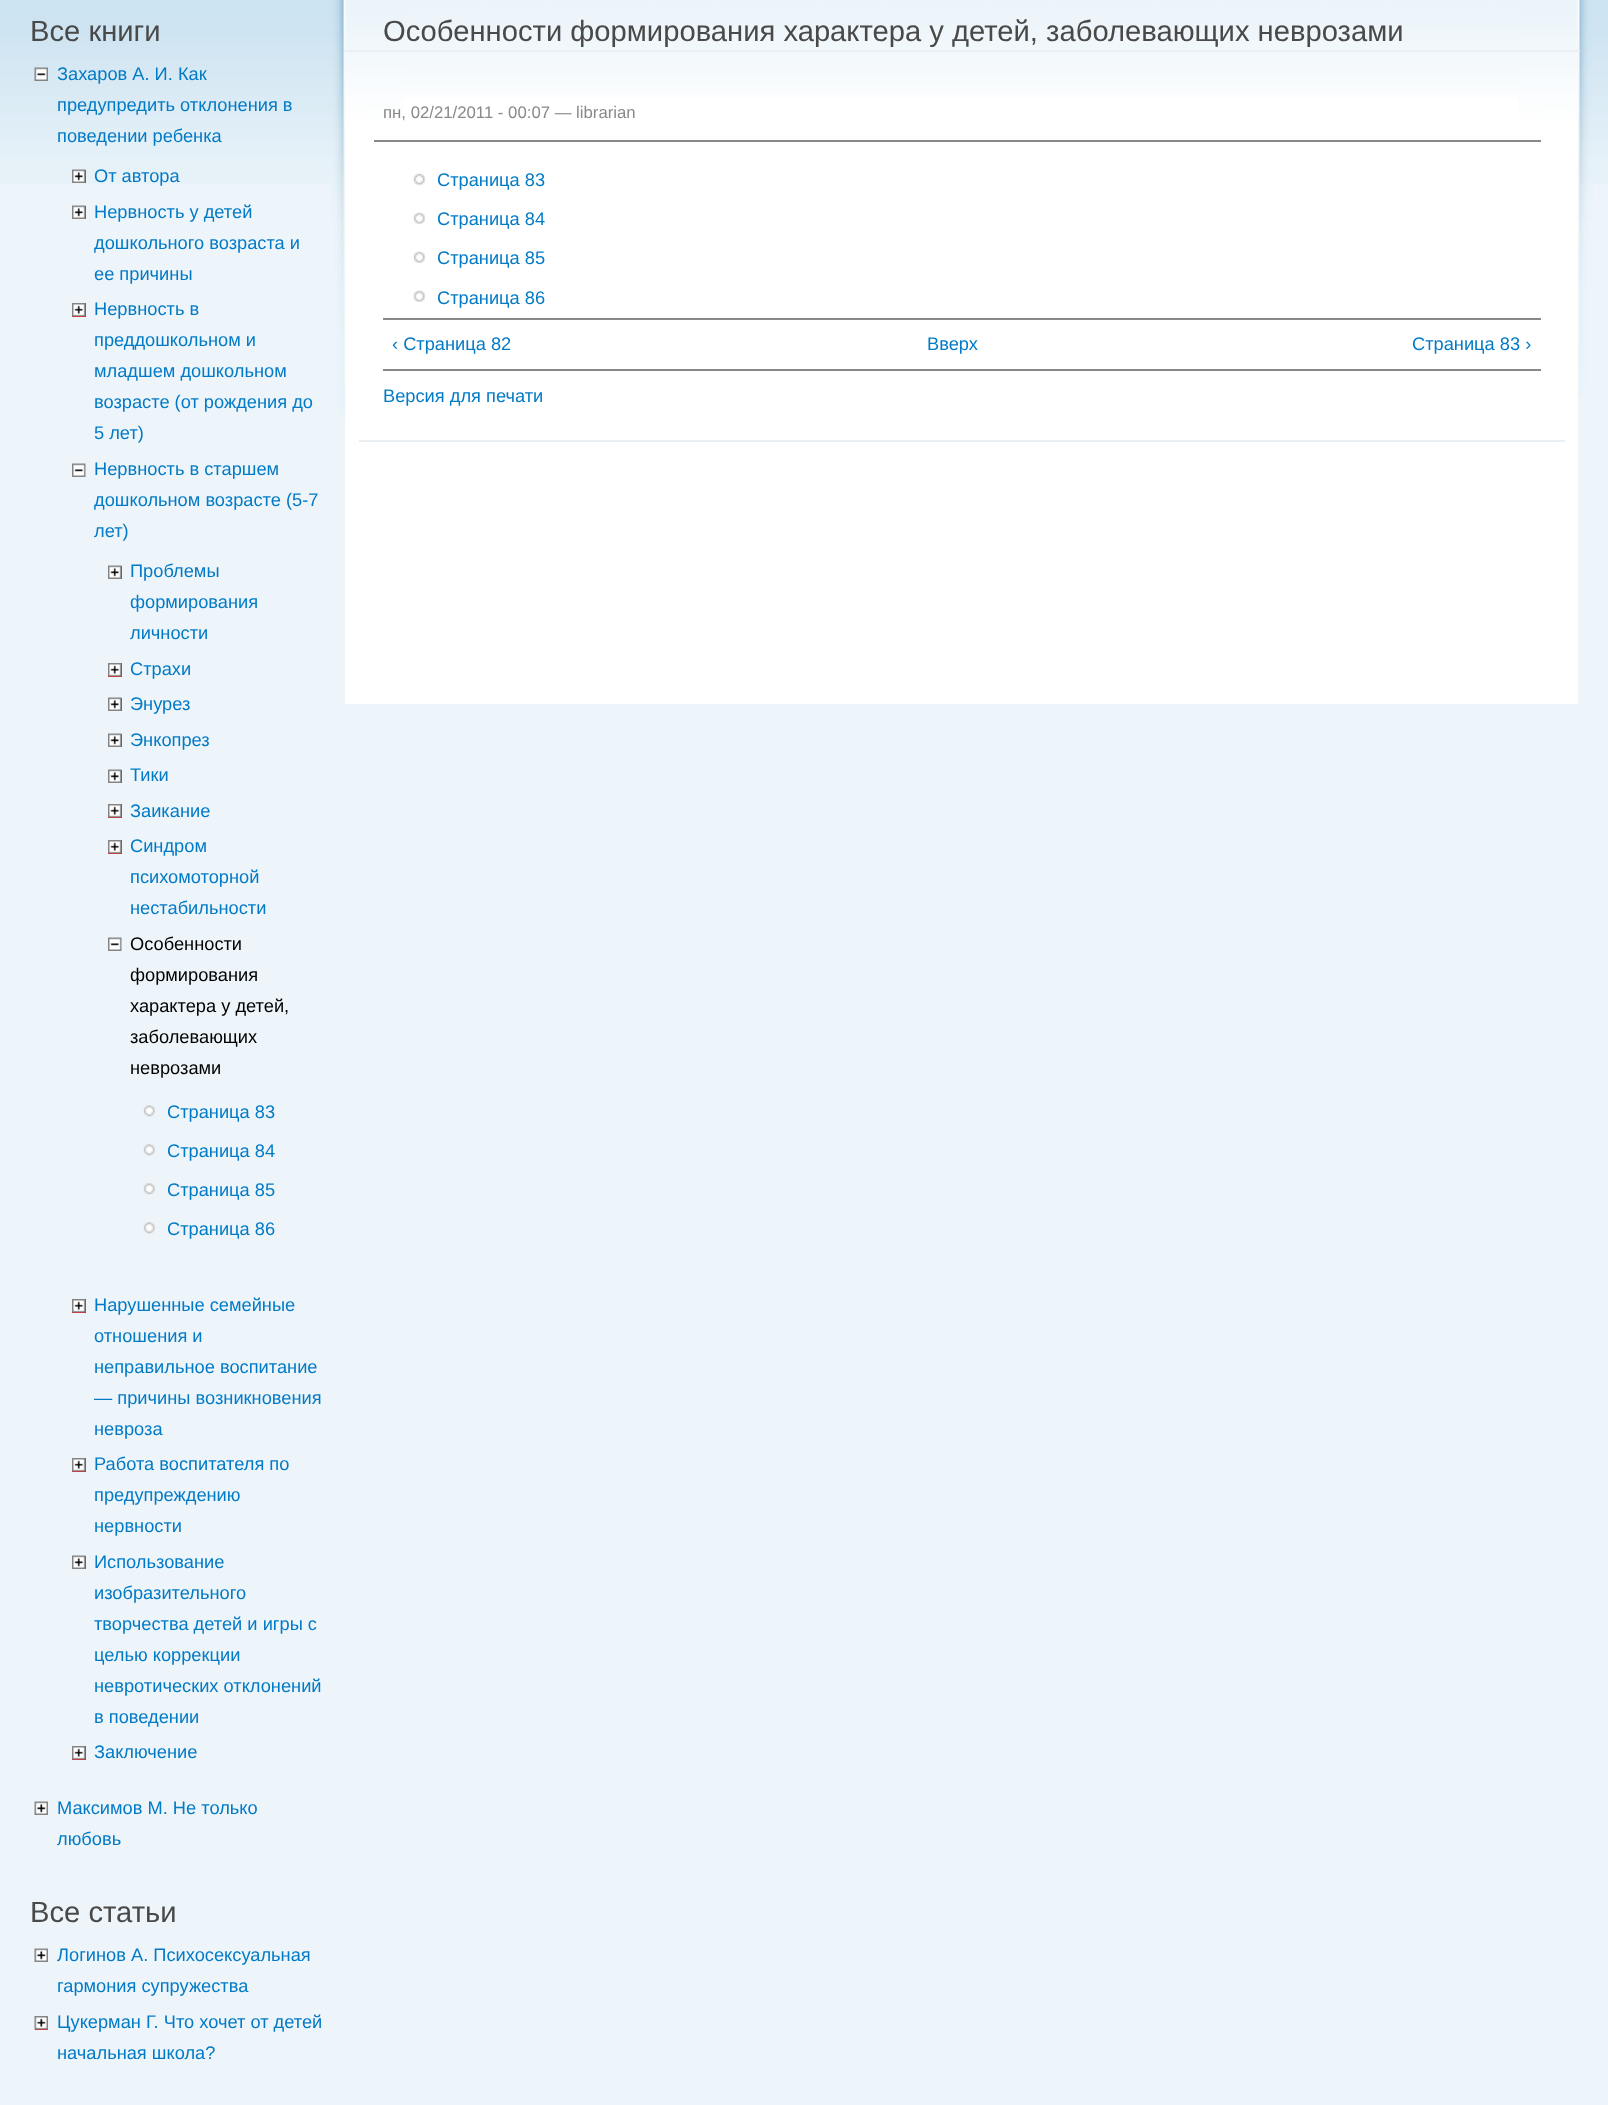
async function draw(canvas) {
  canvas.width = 1608;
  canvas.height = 2105;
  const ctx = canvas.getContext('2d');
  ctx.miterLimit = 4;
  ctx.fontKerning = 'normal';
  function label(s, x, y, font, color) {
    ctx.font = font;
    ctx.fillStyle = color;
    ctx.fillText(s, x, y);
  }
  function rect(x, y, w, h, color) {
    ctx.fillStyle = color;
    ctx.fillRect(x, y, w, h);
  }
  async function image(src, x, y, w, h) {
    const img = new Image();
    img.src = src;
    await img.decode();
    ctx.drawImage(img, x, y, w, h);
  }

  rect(0, 0, 1608, 2105, '#edf5fa');
  await image('assets/img1.png', 0, 0, 1608, 184);
  label('Все книги', 30, 41, '29.2px Liberation Sans', '#494949');
  await image('assets/img2.png', 34, 67, 14, 14);
  label('Захаров А. И. Как', 57, 80, '18.25px Liberation Sans', '#027ac6');
  label('предупредить отклонения в', 57, 111, '18.25px Liberation Sans', '#027ac6');
  label('поведении ребенка', 57, 142, '18.25px Liberation Sans', '#027ac6');
  rect(85, 170, 1, 13, '#f00');
  await image('assets/img3.png', 72, 169, 14, 14);
  label('От автора', 94, 182, '18.25px Liberation Sans', '#027ac6');
  rect(85, 206, 1, 13, '#f00');
  await image('assets/img4.png', 72, 205, 14, 14);
  label('Нервность у детей', 94, 218, '18.25px Liberation Sans', '#027ac6');
  label('дошкольного возраста и', 94, 249, '18.25px Liberation Sans', '#027ac6');
  label('ее причины', 94, 280, '18.25px Liberation Sans', '#027ac6');
  rect(72, 303, 14, 14, '#f00');
  await image('assets/img5.png', 72, 303, 14, 14);
  label('Нервность в', 94, 315, '18.25px Liberation Sans', '#027ac6');
  label('преддошкольном и', 94, 346, '18.25px Liberation Sans', '#027ac6');
  label('младшем дошкольном', 94, 377, '18.25px Liberation Sans', '#027ac6');
  label('возрасте (от рождения до', 94, 408, '18.25px Liberation Sans', '#027ac6');
  label('5 лет)', 94, 439, '18.25px Liberation Sans', '#027ac6');
  await image('assets/img6.png', 72, 463, 14, 14);
  label('Нервность в старшем', 94, 475, '18.25px Liberation Sans', '#027ac6');
  label('дошкольном возрасте (5-7', 94, 506, '18.25px Liberation Sans', '#027ac6');
  label('лет)', 94, 537, '18.25px Liberation Sans', '#027ac6');
  rect(121, 566, 1, 13, '#f00');
  await image('assets/img4.png', 108, 565, 14, 14);
  label('Проблемы', 130, 577, '18.25px Liberation Sans', '#027ac6');
  label('формирования', 130, 608, '18.25px Liberation Sans', '#027ac6');
  label('личности', 130, 639, '18.25px Liberation Sans', '#027ac6');
  rect(108, 663, 14, 14, '#f00');
  await image('assets/img5.png', 108, 663, 14, 14);
  label('Страхи', 130, 675, '18.25px Liberation Sans', '#027ac6');
  rect(121, 698, 1, 13, '#f00');
  await image('assets/img4.png', 108, 697, 14, 14);
  label('Энурез', 130, 710, '18.25px Liberation Sans', '#027ac6');
  rect(121, 734, 1, 13, '#f00');
  await image('assets/img4.png', 108, 733, 14, 14);
  label('Энкопрез', 130, 746, '18.25px Liberation Sans', '#027ac6');
  rect(121, 770, 1, 13, '#f00');
  await image('assets/img4.png', 108, 769, 14, 14);
  label('Тики', 130, 781, '18.25px Liberation Sans', '#027ac6');
  rect(108, 804, 14, 14, '#f00');
  await image('assets/img5.png', 108, 804, 14, 14);
  label('Заикание', 130, 817, '18.25px Liberation Sans', '#027ac6');
  rect(108, 840, 14, 14, '#f00');
  await image('assets/img5.png', 108, 840, 14, 14);
  label('Синдром', 130, 852, '18.25px Liberation Sans', '#027ac6');
  label('психомоторной', 130, 883, '18.25px Liberation Sans', '#027ac6');
  label('нестабильности', 130, 914, '18.25px Liberation Sans', '#027ac6');
  await image('assets/img6.png', 108, 937, 14, 14);
  label('Особенности', 130, 950, '18.25px Liberation Sans', '#000');
  label('формирования', 130, 981, '18.25px Liberation Sans', '#000');
  label('характера у детей,', 130, 1012, '18.25px Liberation Sans', '#000');
  label('заболевающих', 130, 1043, '18.25px Liberation Sans', '#000');
  label('неврозами', 130, 1074, '18.25px Liberation Sans', '#000');
  await image('assets/img7.png', 143, 1105, 12, 12);
  label('Страница 83', 167, 1118, '18.25px Liberation Sans', '#027ac6');
  await image('assets/img7.png', 143, 1144, 12, 12);
  label('Страница 84', 167, 1157, '18.25px Liberation Sans', '#027ac6');
  await image('assets/img7.png', 143, 1183, 12, 12);
  label('Страница 85', 167, 1196, '18.25px Liberation Sans', '#027ac6');
  await image('assets/img7.png', 143, 1222, 12, 12);
  label('Страница 86', 167, 1235, '18.25px Liberation Sans', '#027ac6');
  rect(72, 1299, 14, 14, '#f00');
  await image('assets/img5.png', 72, 1299, 14, 14);
  label('Нарушенные семейные', 94, 1311, '18.25px Liberation Sans', '#027ac6');
  label('отношения и', 94, 1342, '18.25px Liberation Sans', '#027ac6');
  label('неправильное воспитание', 94, 1373, '18.25px Liberation Sans', '#027ac6');
  label('— причины возникновения', 94, 1404, '18.25px Liberation Sans', '#027ac6');
  label('невроза', 94, 1435, '18.25px Liberation Sans', '#027ac6');
  rect(72, 1458, 14, 14, '#f00');
  await image('assets/img5.png', 72, 1458, 14, 14);
  label('Работа воспитателя по', 94, 1470, '18.25px Liberation Sans', '#027ac6');
  label('предупреждению', 94, 1501, '18.25px Liberation Sans', '#027ac6');
  label('нервности', 94, 1532, '18.25px Liberation Sans', '#027ac6');
  rect(85, 1556, 1, 13, '#f00');
  await image('assets/img4.png', 72, 1555, 14, 14);
  label('Использование', 94, 1568, '18.25px Liberation Sans', '#027ac6');
  label('изобразительного', 94, 1599, '18.25px Liberation Sans', '#027ac6');
  label('творчества детей и игры с', 94, 1630, '18.25px Liberation Sans', '#027ac6');
  label('целью коррекции', 94, 1661, '18.25px Liberation Sans', '#027ac6');
  label('невротических отклонений', 94, 1692, '18.25px Liberation Sans', '#027ac6');
  label('в поведении', 94, 1723, '18.25px Liberation Sans', '#027ac6');
  rect(72, 1746, 14, 14, '#f00');
  await image('assets/img5.png', 72, 1746, 14, 14);
  label('Заключение', 94, 1758, '18.25px Liberation Sans', '#027ac6');
  await image('assets/img8.png', 34, 1801, 14, 14);
  label('Максимов М. Не только', 57, 1814, '18.25px Liberation Sans', '#027ac6');
  label('любовь', 57, 1845, '18.25px Liberation Sans', '#027ac6');
  label('Все статьи', 30, 1922, '29.2px Liberation Sans', '#494949');
  await image('assets/img8.png', 34, 1948, 14, 14);
  label('Логинов А. Психосексуальная', 57, 1961, '18.25px Liberation Sans', '#027ac6');
  label('гармония супружества', 57, 1992, '18.25px Liberation Sans', '#027ac6');
  rect(35, 2029, 13, 1, '#f00');
  await image('assets/img9.png', 34, 2016, 14, 14);
  label('Цукерман Г. Что хочет от детей', 57, 2028, '18.25px Liberation Sans', '#027ac6');
  label('начальная школа?', 57, 2059, '18.25px Liberation Sans', '#027ac6');
  rect(345, 97, 1233, 607, '#fff');
  await image('assets/img10.png', 404, 0, 1114, 97);
  await image('assets/img11.png', 1518, 0, 75, 395);
  await image('assets/img12.png', 330, 0, 74, 417);
  rect(344, 50, 1236, 2, '#e9eff3');
  label('Особенности формирования характера у детей, заболевающих неврозами', 383, 41, '29.2px Liberation Sans', '#494949');
  rect(359, 440, 1206, 2, '#e9eff3');
  label('пн, 02/21/2011 - 00:07 — librarian', 383, 118, '16.75px Liberation Sans', '#898989');
  rect(374, 140, 1167, 2, '#888');
  await image('assets/img13.png', 413, 173, 12, 12);
  label('Страница 83', 437, 186, '18.25px Liberation Sans', '#027ac6');
  await image('assets/img13.png', 413, 212, 12, 12);
  label('Страница 84', 437, 225, '18.25px Liberation Sans', '#027ac6');
  await image('assets/img13.png', 413, 251, 12, 12);
  label('Страница 85', 437, 264, '18.25px Liberation Sans', '#027ac6');
  await image('assets/img13.png', 413, 290, 12, 12);
  label('Страница 86', 437, 304, '18.25px Liberation Sans', '#027ac6');
  rect(383, 318, 1158, 2, '#888');
  rect(383, 369, 1158, 2, '#888');
  label('‹ Страница 82', 392, 350, '18.25px Liberation Sans', '#027ac6');
  label('Вверх', 927, 350, '18.25px Liberation Sans', '#027ac6');
  label('Страница 83 ›', 1412, 350, '18.25px Liberation Sans', '#027ac6');
  label('Версия для печати', 383, 402, '18.25px Liberation Sans', '#027ac6');
}

draw(document.querySelector('canvas'));
